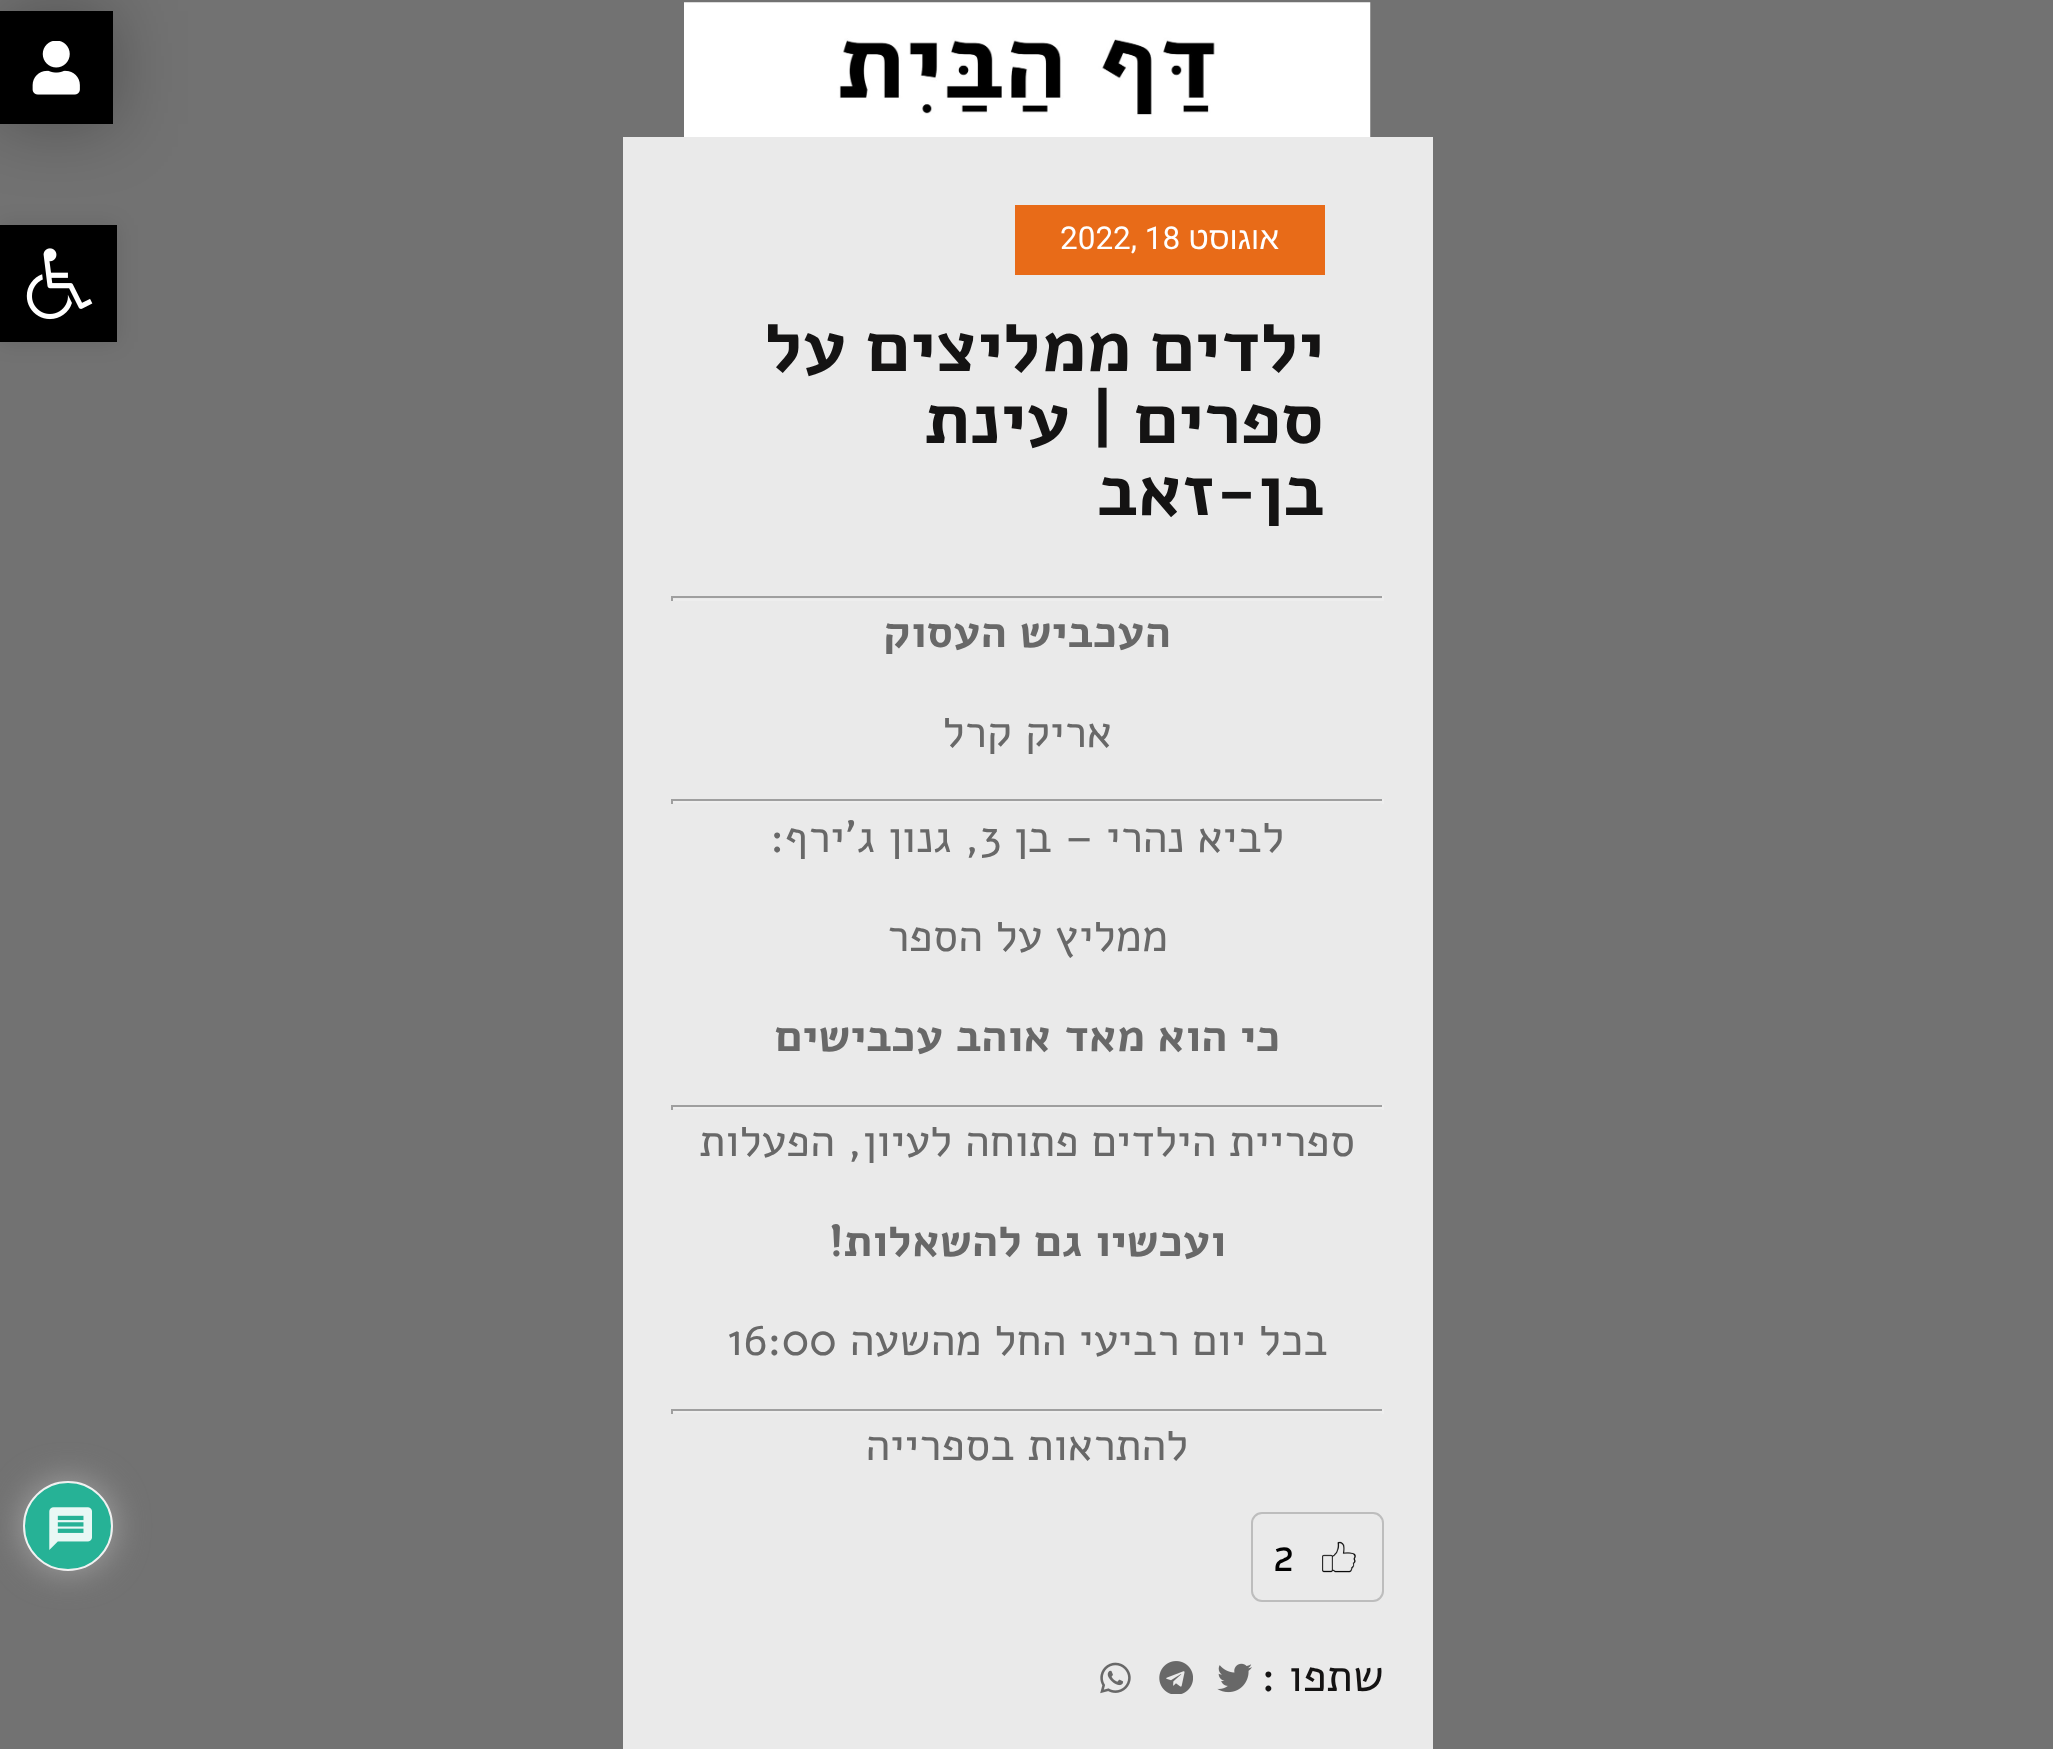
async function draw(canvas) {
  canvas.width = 2053;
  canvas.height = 1749;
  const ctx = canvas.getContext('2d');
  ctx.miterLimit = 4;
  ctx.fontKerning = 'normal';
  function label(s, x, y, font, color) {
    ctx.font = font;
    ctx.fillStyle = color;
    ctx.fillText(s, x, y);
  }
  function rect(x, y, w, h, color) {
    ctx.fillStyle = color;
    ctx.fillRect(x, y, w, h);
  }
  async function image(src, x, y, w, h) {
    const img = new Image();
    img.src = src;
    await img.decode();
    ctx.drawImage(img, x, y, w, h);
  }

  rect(0, 0, 2053, 1749, '#727272');
  await image('assets/img1.png', 684, 2, 687, 135);
  ctx.fillStyle = '#0000004d';
  ctx.filter = 'blur(34px)';
  ctx.beginPath();
  ctx.rect(0, 11, 113, 113);
  ctx.fill();
  ctx.filter = 'none';
  rect(0, 11, 113, 113, '#000');
  await image('assets/img2.png', 32, 41, 48, 54);
  rect(623, 137, 810, 1612, '#eaeaea');
  rect(1015, 205, 310, 70, '#e86b18');
  ctx.direction = 'rtl';
  label('אוגוסט', 1279, 249, '31.5px Liberation Sans', '#fff');
  ctx.direction = 'ltr';
  label('2022, 18', 1060, 249, '31.5px Roboto', '#fff');
  ctx.direction = 'rtl';
  label('ילדים ממליצים על', 1324, 371, 'bold 72px Alef', '#141313');
  label('ספרים | עינת', 1324, 443, 'bold 72px Alef', '#141313');
  label('בן-זאב', 1324, 515, 'bold 72px Alef', '#141313');
  rect(671, 596, 713, 2, '#9f9f9f');
  rect(1382, 596, 2, 5, '#eee');
  rect(671, 599, 713, 2, '#eee');
  rect(671, 596, 2, 5, '#9f9f9f');
  label('העכביש העסוק', 1171, 647, 'bold 45px Alef', '#686868');
  label('אריק קרל', 1112, 747, '45px Alef', '#686868');
  rect(671, 799, 713, 2, '#9f9f9f');
  rect(1382, 799, 2, 5, '#eee');
  rect(671, 801, 713, 2, '#eee');
  rect(671, 799, 2, 5, '#9f9f9f');
  label('לביא נהרי – בן', 1284, 852, '45px Alef', '#686868');
  ctx.direction = 'ltr';
  label('3', 980, 852, '45px Alef', '#686868');
  ctx.direction = 'rtl';
  label(', גנון ג’ירף:', 980, 852, '45px Alef', '#686868');
  label('ממליץ על הספר', 1168, 951, '45px Alef', '#686868');
  label('כי הוא מאד אוהב עכבישים', 1280, 1051, 'bold 45px Alef', '#686868');
  rect(671, 1105, 713, 2, '#9f9f9f');
  rect(1382, 1105, 2, 5, '#eee');
  rect(671, 1107, 713, 2, '#eee');
  rect(671, 1105, 2, 5, '#9f9f9f');
  label('ספריית הילדים פתוחה לעיון, הפעלות', 1355, 1156, '45px Alef', '#686868');
  label('ועכשיו גם להשאלות!', 1226, 1256, 'bold 45px Alef', '#686868');
  label('בכל יום רביעי החל מהשעה', 1328, 1355, '45px Alef', '#686868');
  ctx.direction = 'ltr';
  label('16:00', 727, 1355, '45px Alef', '#686868');
  rect(671, 1409, 713, 2, '#9f9f9f');
  rect(1382, 1409, 2, 5, '#eee');
  rect(671, 1411, 713, 2, '#eee');
  rect(671, 1409, 2, 5, '#9f9f9f');
  ctx.direction = 'rtl';
  label('להתראות בספרייה', 1188, 1460, '45px Alef', '#686868');
  ctx.beginPath();
  ctx.roundRect(1252, 1513, 131, 88, 10);
  ctx.strokeStyle = '#bdbdbd';
  ctx.lineWidth = 2;
  ctx.stroke();
  await image('assets/img3.png', 1322, 1541, 34, 32);
  ctx.direction = 'ltr';
  label('2', 1273, 1571, '45px Alef', '#000');
  ctx.direction = 'rtl';
  label('שתפו :', 1384, 1691, '45px Alef', '#141313');
  await image('assets/img4.png', 1217, 1663, 35, 30);
  await image('assets/img5.png', 1159, 1661, 34, 33);
  await image('assets/img6.png', 1100, 1662, 31, 32);
  ctx.fillStyle = '#0000001a';
  ctx.filter = 'blur(11px)';
  ctx.beginPath();
  ctx.rect(0, 225, 117, 117);
  ctx.fill();
  ctx.filter = 'none';
  rect(0, 225, 117, 117, '#000');
  await image('assets/img7.png', 26, 248, 67, 72);
  ctx.fillStyle = '#a4a4a4';
  ctx.filter = 'blur(17px)';
  ctx.beginPath();
  ctx.roundRect(23, 1481, 90, 90, 45);
  ctx.fill();
  ctx.filter = 'none';
  ctx.fillStyle = '#26b296';
  ctx.beginPath();
  ctx.arc(68, 1526, 44, 0, 2 * Math.PI);
  ctx.fill();
  ctx.strokeStyle = '#f1f1f1';
  ctx.stroke();
  await image('assets/img8.png', 49, 1507, 43, 43);
}

draw(document.querySelector('canvas'));
